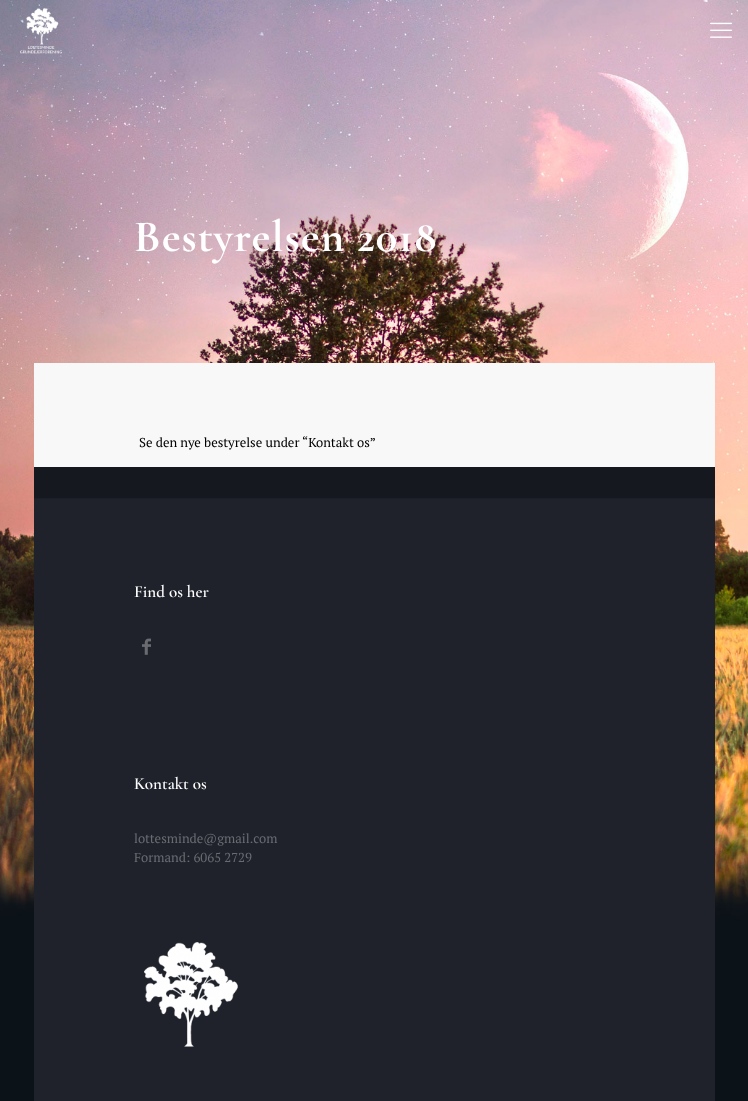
async function draw(canvas) {
  canvas.width = 748;
  canvas.height = 1101;
  const ctx = canvas.getContext('2d');
  ctx.miterLimit = 4;
  ctx.fontKerning = 'normal';
  function label(s, x, y, font, color) {
    ctx.font = font;
    ctx.fillStyle = color;
    ctx.fillText(s, x, y);
  }
  function rect(x, y, w, h, color) {
    ctx.fillStyle = color;
    ctx.fillRect(x, y, w, h);
  }
  async function image(src, x, y, w, h) {
    const img = new Image();
    img.src = src;
    await img.decode();
    ctx.drawImage(img, x, y, w, h);
  }

  rect(0, 0, 748, 1101, '#fff');
  await image('assets/img1.png', 0, 0, 748, 1101);
  await image('assets/img2.png', 20, 8, 42, 46);
  await image('assets/img3.png', 710, 22, 22, 16);
  ctx.letterSpacing = '1px';
  label('Bestyrelsen 2018', 134, 251, 'bold 45px Cormorant Garamond', '#fff');
  rect(34, 363, 681, 104, '#f9f8f8');
  ctx.letterSpacing = '0px';
  label('Se den nye bestyrelse under “Kontakt os”', 139, 447, '13px PT Serif', '#000');
  await image('assets/img4.png', 34, 467, 681, 634);
  label('Find os her', 134, 597, '600 17px Cormorant Garamond', '#fff');
  await image('assets/img5.png', 142, 638, 9, 17);
  label('Kontakt os', 134, 789, '600 17px Cormorant Garamond', '#fff');
  label('lottesminde@gmail.com', 134, 843, '13px PT Serif', '#696b71');
  label('Formand: 6065 2729', 134, 862, '13px PT Serif', '#696b71');
  await image('assets/img6.png', 144, 942, 94, 105);
}

draw(document.querySelector('canvas'));
